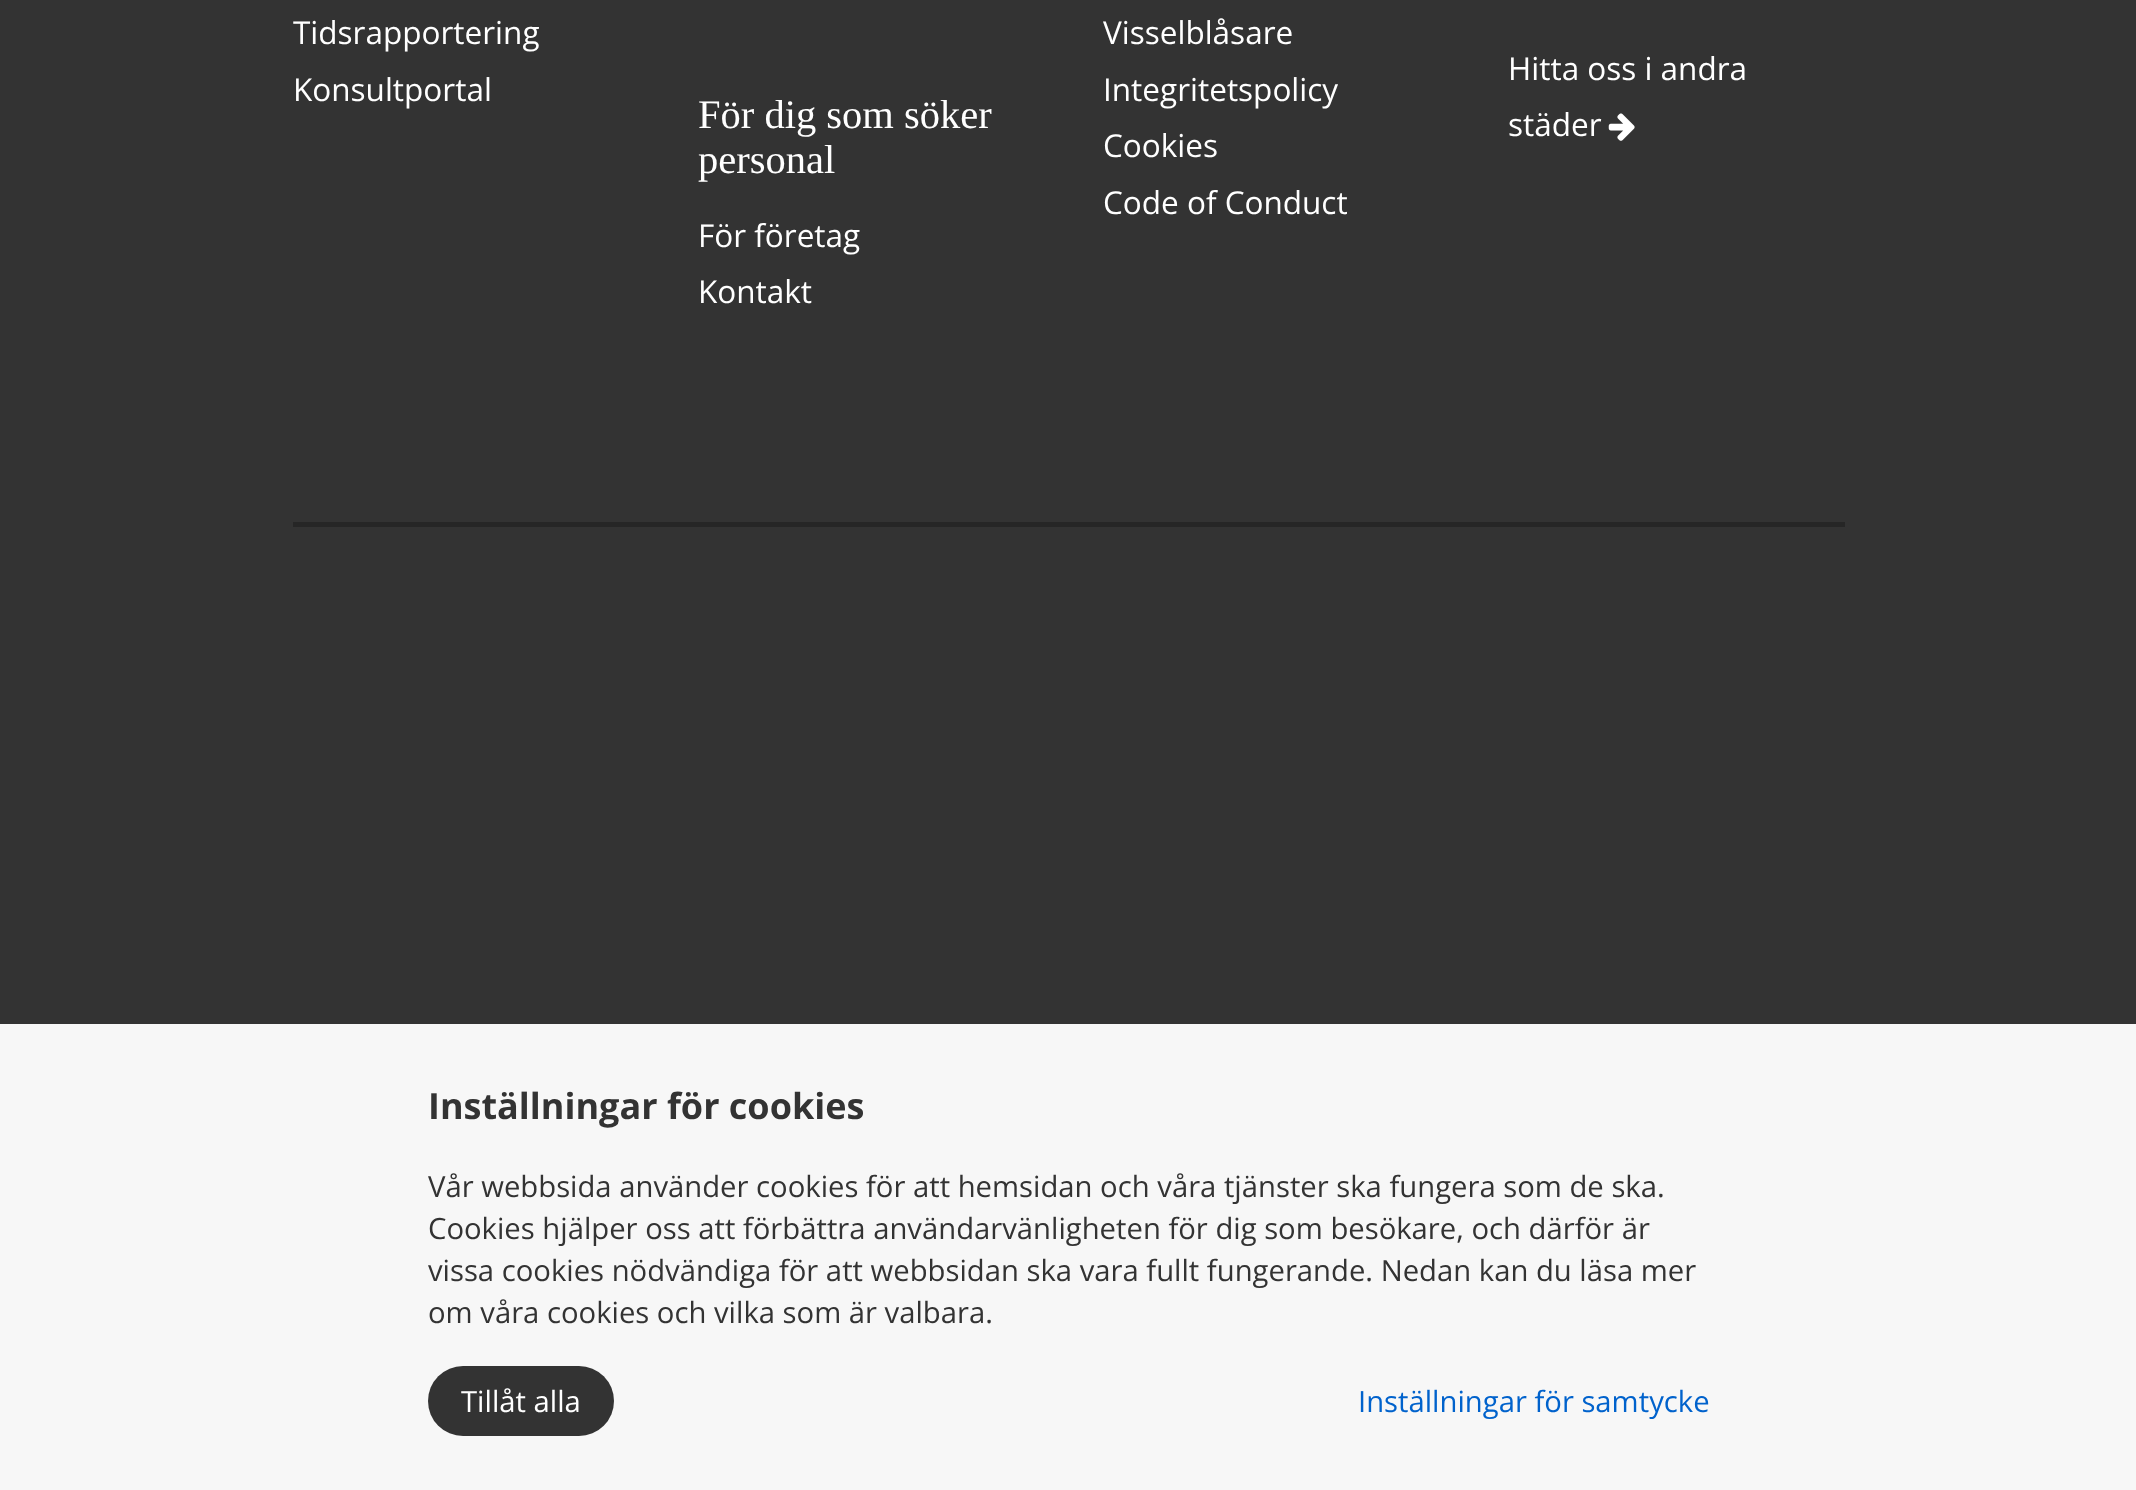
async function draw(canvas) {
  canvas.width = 2136;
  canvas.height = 1490;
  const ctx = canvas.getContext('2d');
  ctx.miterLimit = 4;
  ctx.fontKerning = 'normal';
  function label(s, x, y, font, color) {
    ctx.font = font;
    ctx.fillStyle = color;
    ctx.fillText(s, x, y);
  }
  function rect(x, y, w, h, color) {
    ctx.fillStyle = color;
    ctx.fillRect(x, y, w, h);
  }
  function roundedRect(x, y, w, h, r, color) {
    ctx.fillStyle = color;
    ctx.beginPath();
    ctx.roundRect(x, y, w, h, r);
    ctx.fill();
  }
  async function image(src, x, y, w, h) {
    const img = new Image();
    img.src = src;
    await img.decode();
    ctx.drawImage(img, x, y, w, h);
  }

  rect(0, 0, 2136, 1490, '#333');
  label('Tidsrapportering', 293, 44, '31.5px Open Sans', '#fff');
  label('Konsultportal', 293, 101, '31.5px Open Sans', '#fff');
  label('För dig som söker', 698, 128, '40.5px Liberation Serif', '#fff');
  label('personal', 698, 173, '40.5px Liberation Serif', '#fff');
  label('För företag', 698, 247, '31.5px Open Sans', '#fff');
  label('Kontakt', 698, 303, '31.5px Open Sans', '#fff');
  label('Visselblåsare', 1103, 44, '31.5px Open Sans', '#fff');
  label('Integritetspolicy', 1103, 101, '31.5px Open Sans', '#fff');
  label('Cookies', 1103, 157, '31.5px Open Sans', '#fff');
  label('Code of Conduct', 1103, 214, '31.5px Open Sans', '#fff');
  label('Hitta oss i andra', 1508, 80, '31.5px Open Sans', '#fff');
  label('städer', 1508, 136, '31.5px Open Sans', '#fff');
  await image('assets/img1.png', 1608, 113, 27, 28);
  rect(293, 522, 1552, 5, '#262626');
  rect(0, 1024, 2136, 466, '#f7f7f7');
  label('Inställningar för cookies', 428, 1119, 'bold 36px Open Sans', '#333');
  label('Vår webbsida använder cookies för att hemsidan och våra tjänster ska fungera som de ska.', 428, 1197, '29.25px Open Sans', '#333');
  label('Cookies hjälper oss att förbättra användarvänligheten för dig som besökare, och därför är', 428, 1239, '29.25px Open Sans', '#333');
  label('vissa cookies nödvändiga för att webbsidan ska vara fullt fungerande. Nedan kan du läsa mer', 428, 1281, '29.25px Open Sans', '#333');
  label('om våra cookies och vilka som är valbara.', 428, 1323, '29.25px Open Sans', '#333');
  roundedRect(428, 1366, 186, 70, 35, '#333');
  label('Tillåt alla', 461, 1412, '29.25px Open Sans', '#fff');
  label('Inställningar för samtycke', 1358, 1412, '29.25px Open Sans', '#0062cc');
}

draw(document.querySelector('canvas'));
